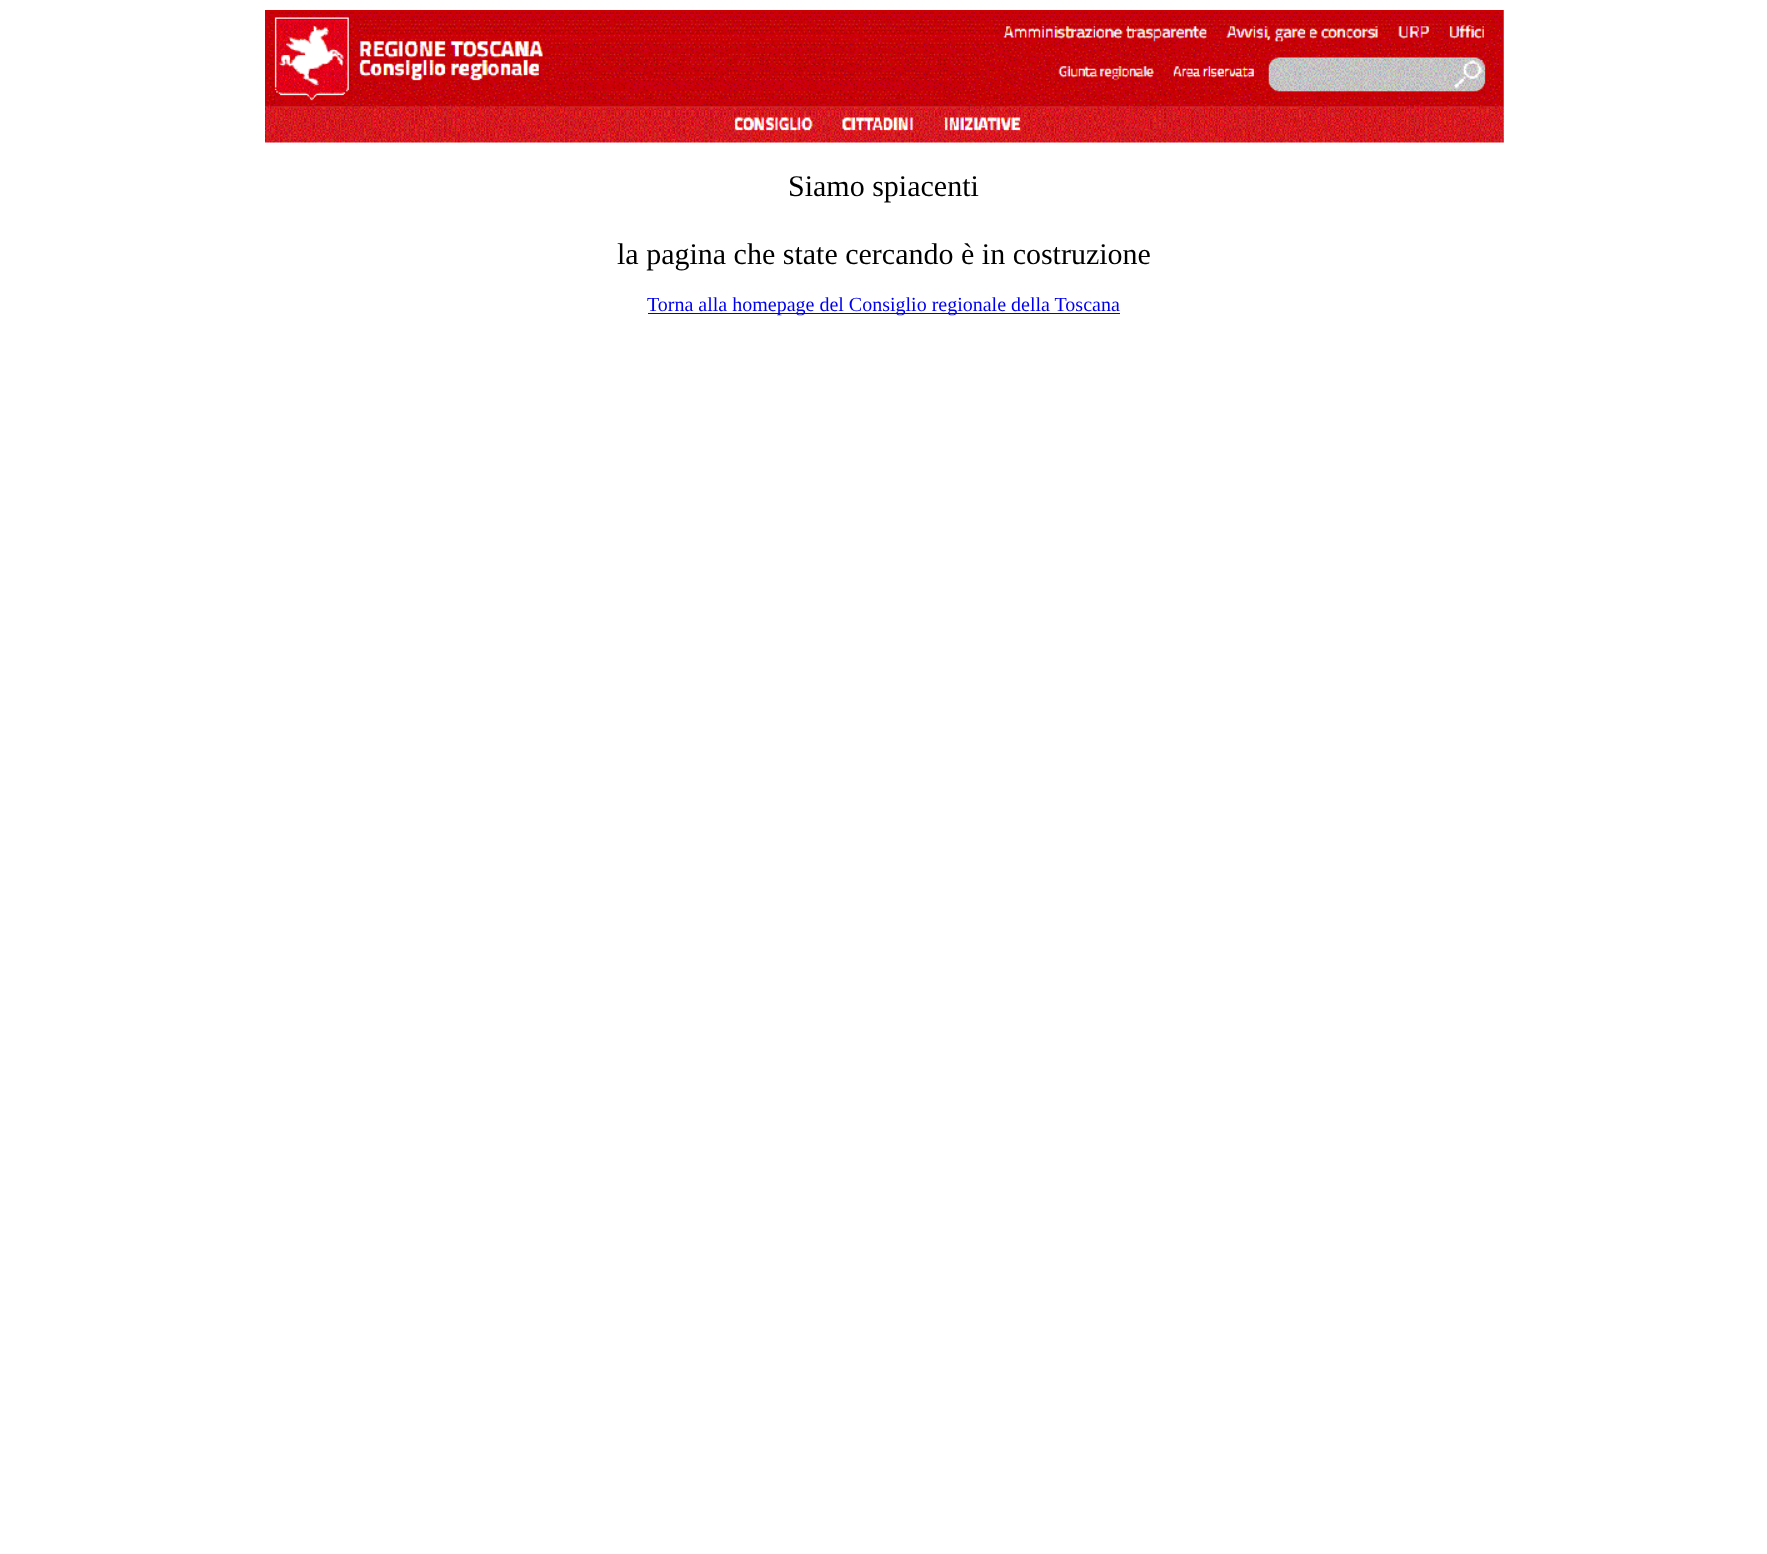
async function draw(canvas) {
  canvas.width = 1767;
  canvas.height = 1554;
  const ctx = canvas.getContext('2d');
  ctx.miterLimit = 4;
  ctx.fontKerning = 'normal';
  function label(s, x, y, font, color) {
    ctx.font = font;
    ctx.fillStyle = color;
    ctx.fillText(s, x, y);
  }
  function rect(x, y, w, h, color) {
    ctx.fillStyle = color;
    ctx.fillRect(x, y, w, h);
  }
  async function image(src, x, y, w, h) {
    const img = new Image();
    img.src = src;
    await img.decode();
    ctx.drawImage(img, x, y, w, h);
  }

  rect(0, 0, 1767, 1554, '#fff');
  await image('assets/img1.png', 265, 10, 1239, 133);
  label('Siamo spiacenti', 788, 196, '30px Liberation Serif', '#000');
  label('la pagina che state cercando è in costruzione', 617, 264, '30px Liberation Serif', '#000');
  rect(648, 313, 472, 1, '#00e');
  label('Torna alla homepage del Consiglio regionale della Toscana', 647, 311, '20px Liberation Serif', '#00e');
}

draw(document.querySelector('canvas'));
